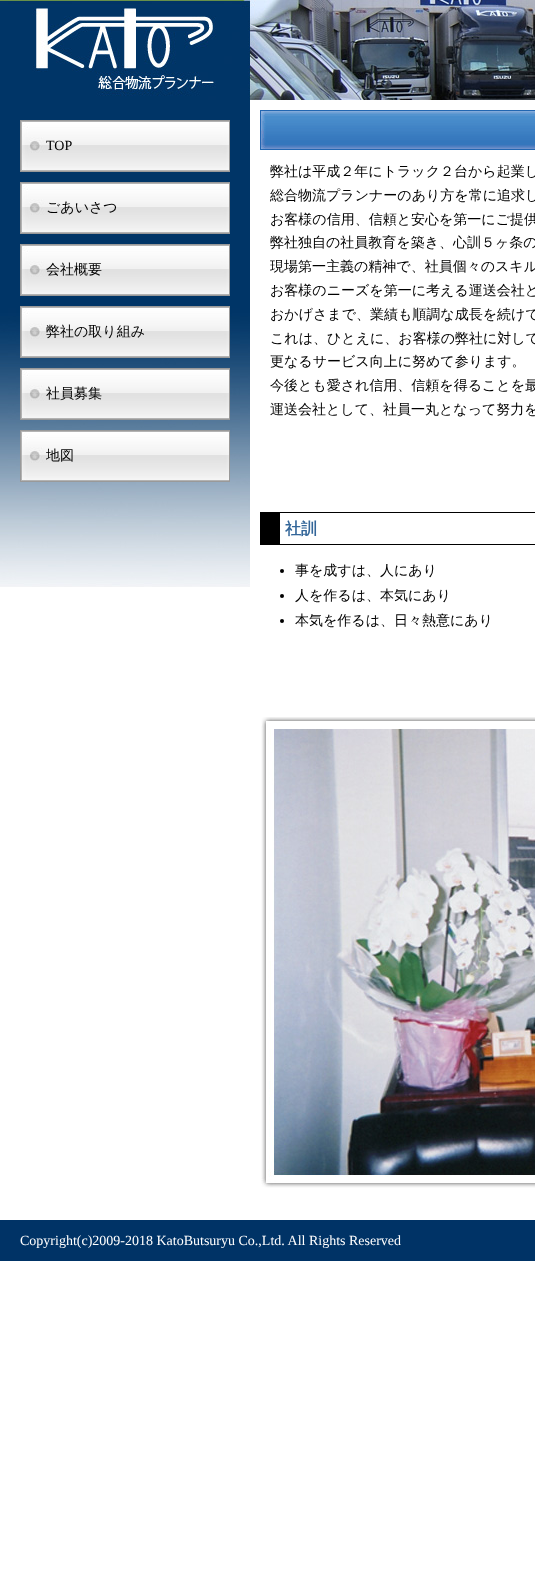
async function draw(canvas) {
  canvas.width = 535;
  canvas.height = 1583;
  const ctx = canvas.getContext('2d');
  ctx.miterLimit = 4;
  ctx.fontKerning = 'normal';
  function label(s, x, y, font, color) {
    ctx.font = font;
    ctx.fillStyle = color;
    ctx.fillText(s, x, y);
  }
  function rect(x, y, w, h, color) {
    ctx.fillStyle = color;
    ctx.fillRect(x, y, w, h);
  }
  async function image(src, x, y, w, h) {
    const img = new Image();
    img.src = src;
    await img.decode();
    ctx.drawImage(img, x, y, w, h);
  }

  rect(0, 0, 535, 1583, '#fff');
  await image('assets/img1.png', 0, 0, 535, 100);
  await image('assets/img2.png', 0, 100, 250, 487);
  ctx.strokeStyle = '#999';
  ctx.strokeRect(20.5, 120.5, 209, 51);
  await image('assets/img3.png', 21, 121, 208, 50);
  label('TOP', 46, 150, '14px Liberation Serif', '#000');
  ctx.strokeRect(20.5, 182.5, 209, 51);
  await image('assets/img3.png', 21, 183, 208, 50);
  label('ごあいさつ', 46, 212, '500 14px WenQuanYi Zen Hei', '#000');
  ctx.strokeRect(20.5, 244.5, 209, 51);
  await image('assets/img3.png', 21, 245, 208, 50);
  label('会社概要', 46, 274, '500 14px WenQuanYi Zen Hei', '#000');
  ctx.strokeRect(20.5, 306.5, 209, 51);
  await image('assets/img3.png', 21, 307, 208, 50);
  label('弊社の取り組み', 46, 336, '500 14px WenQuanYi Zen Hei', '#000');
  ctx.strokeRect(20.5, 368.5, 209, 51);
  await image('assets/img3.png', 21, 369, 208, 50);
  label('社員募集', 46, 398, '500 14px WenQuanYi Zen Hei', '#000');
  ctx.strokeRect(20.5, 430.5, 209, 51);
  await image('assets/img3.png', 21, 431, 208, 50);
  label('地図', 46, 460, '500 14px WenQuanYi Zen Hei', '#000');
  await image('assets/img4.png', 260, 110, 275, 40);
  label('弊社は平成２年にトラック２台から起業し', 270, 176, '500 14px WenQuanYi Zen Hei', '#000');
  label('総合物流プランナーのあり方を常に追求し', 270, 200, '500 14px WenQuanYi Zen Hei', '#000');
  label('お客様の信用、信頼と安心を第一にご提供', 270, 224, '500 14px WenQuanYi Zen Hei', '#000');
  label('弊社独自の社員教育を築き、心訓５ヶ条の', 270, 247, '500 14px WenQuanYi Zen Hei', '#000');
  label('現場第一主義の精神で、社員個々のスキル', 270, 271, '500 14px WenQuanYi Zen Hei', '#000');
  label('お客様のニーズを第一に考える運送会社と', 270, 295, '500 14px WenQuanYi Zen Hei', '#000');
  label('おかげさまで、業績も順調な成長を続けて', 270, 319, '500 14px WenQuanYi Zen Hei', '#000');
  label('これは、ひとえに、お客様の弊社に対して', 270, 343, '500 14px WenQuanYi Zen Hei', '#000');
  label('更なるサービス向上に努めて参ります。', 270, 366, '500 14px WenQuanYi Zen Hei', '#000');
  label('今後とも愛され信用、信頼を得ることを最', 270, 390, '500 14px WenQuanYi Zen Hei', '#000');
  label('運送会社として、社員一丸となって努力を', 270, 414, '500 14px WenQuanYi Zen Hei', '#000');
  rect(280, 512, 255, 1, '#000');
  rect(280, 544, 255, 1, '#000');
  rect(260, 512, 20, 33, '#000');
  label('社訓', 285, 534, 'bold 16px WenQuanYi Zen Hei', '#369');
  ctx.fillStyle = '#000';
  ctx.beginPath();
  ctx.arc(282, 571, 2, 0, 2 * Math.PI);
  ctx.fill();
  label('事を成すは、人にあり', 295, 575, '500 14px WenQuanYi Zen Hei', '#000');
  ctx.beginPath();
  ctx.arc(282, 596, 2, 0, 2 * Math.PI);
  ctx.fill();
  label('人を作るは、本気にあり', 295, 600, '500 14px WenQuanYi Zen Hei', '#000');
  ctx.beginPath();
  ctx.arc(282, 621, 2, 0, 2 * Math.PI);
  ctx.fill();
  label('本気を作るは、日々熱意にあり', 295, 625, '500 14px WenQuanYi Zen Hei', '#000');
  await image('assets/img5.png', 261, 717, 274, 471);
  rect(0, 1220, 535, 41, '#036');
  label('Copyright(c)2009-2018 KatoButsuryu Co.,Ltd. All Rights Reserved', 20, 1245, '14px Liberation Serif', '#fff');
}

draw(document.querySelector('canvas'));
